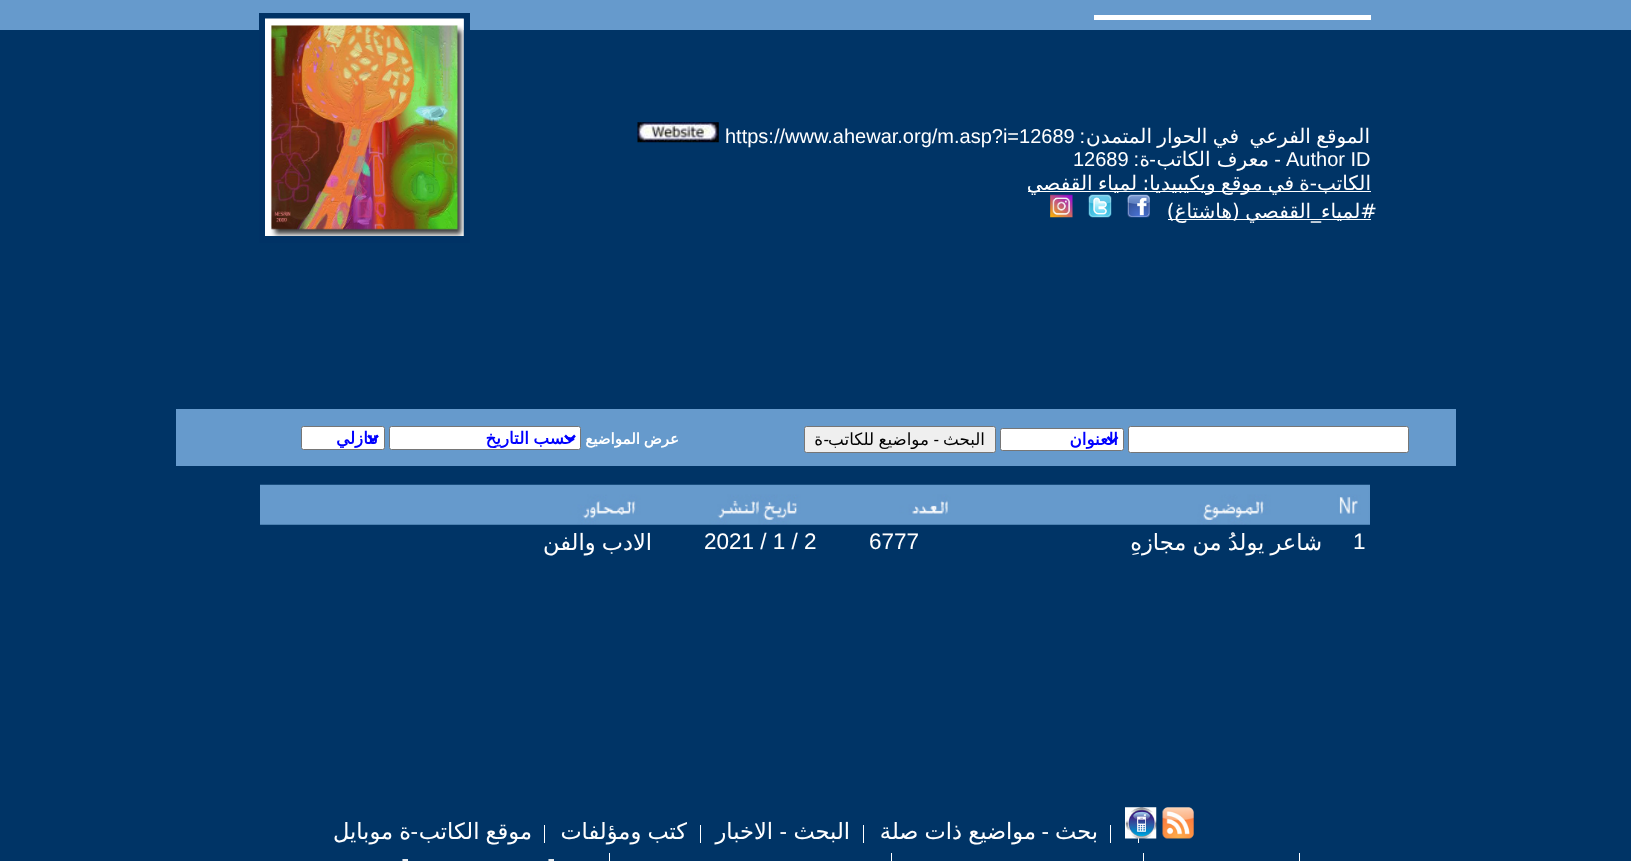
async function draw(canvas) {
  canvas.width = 1631;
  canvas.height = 861;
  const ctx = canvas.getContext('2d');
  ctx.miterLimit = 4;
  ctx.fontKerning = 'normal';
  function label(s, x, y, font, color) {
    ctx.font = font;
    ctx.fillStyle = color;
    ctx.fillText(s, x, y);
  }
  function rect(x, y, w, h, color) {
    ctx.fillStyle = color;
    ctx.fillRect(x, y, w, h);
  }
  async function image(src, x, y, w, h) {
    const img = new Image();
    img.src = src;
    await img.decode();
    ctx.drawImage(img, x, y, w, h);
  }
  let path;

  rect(0, 0, 1631, 861, '#003466');
  rect(0, 0, 1631, 30, '#669acc');
  rect(1094, 15, 277, 5, '#fff');
  ctx.wordSpacing = '-1px';
  ctx.direction = 'rtl';
  label('الموقع الفرعي', 1370, 143, '20px DejaVu Sans', '#fff');
  label('في الحوار المتمدن', 1239, 143, '20px DejaVu Sans', '#fff');
  ctx.wordSpacing = '0px';
  label(':', 1085, 143, '20px Liberation Sans', '#fff');
  ctx.direction = 'ltr';
  label('https://www.ahewar.org/m.asp?i=12689', 725, 143, '20px Liberation Sans', '#fff');
  await image('assets/img1.png', 637, 122, 82, 21);
  ctx.strokeStyle = '#003265';
  ctx.lineWidth = 6;
  ctx.strokeRect(262, 16, 205, 224);
  await image('assets/img2.png', 265, 18, 199, 218);
  label('Author ID', 1286, 166, '20px Liberation Sans', '#fff');
  ctx.direction = 'rtl';
  label('-', 1281, 166, '20px Liberation Sans', '#fff');
  label('معرف الكاتب', 1269, 166, '20px DejaVu Sans', '#fff');
  label('-', 1156, 166, '20px Liberation Sans', '#fff');
  label('ة', 1150, 166, '20px DejaVu Sans', '#fff');
  label(':', 1139, 166, '20px Liberation Sans', '#fff');
  ctx.direction = 'ltr';
  label('12689', 1073, 166, '20px Liberation Sans', '#fff');
  rect(1028, 191, 343, 1, '#fff');
  ctx.wordSpacing = '-1px';
  ctx.direction = 'rtl';
  label('الكاتب-ة في موقع ويكيبيديا: لمياء القفصي', 1371, 190, '20px DejaVu Sans', '#fff');
  rect(1168, 219, 203, 1, '#fff');
  label('#لمياء_القفصي (هاشتاغ)', 1377, 218, '20px DejaVu Sans', '#fff');
  await image('assets/img3.png', 1127, 194, 23, 24);
  await image('assets/img4.png', 1088, 194, 24, 24);
  await image('assets/img5.png', 1050, 194, 23, 24);
  rect(176, 409, 1280, 57, '#669acc');
  ctx.fillStyle = '#fff';
  ctx.beginPath();
  ctx.roundRect(1128.5, 426.5, 280, 26, 2);
  ctx.fill();
  ctx.strokeStyle = '#767676';
  ctx.lineWidth = 1;
  ctx.stroke();
  ctx.beginPath();
  ctx.roundRect(1000.5, 428.5, 123, 22, 2);
  ctx.fill();
  ctx.stroke();
  path = new Path2D('M1107.5 437L1112.5 442L1117.5 437');
  ctx.strokeStyle = '#00f';
  ctx.lineWidth = 2.5;
  ctx.stroke(path);
  ctx.wordSpacing = '0px';
  label('العنوان', 1118, 445, 'bold 16.75px DejaVu Sans', '#00f');
  ctx.fillStyle = '#efefef';
  ctx.beginPath();
  ctx.roundRect(804.5, 426.5, 191, 26, 2);
  ctx.fill();
  ctx.strokeStyle = '#767676';
  ctx.lineWidth = 1;
  ctx.stroke();
  label('البحث', 985, 445, '16.75px DejaVu Sans', '#000');
  label('-', 939, 445, '16.75px Liberation Sans', '#000');
  ctx.wordSpacing = '-1px';
  label('مواضيع للكاتب', 929, 445, '16.75px DejaVu Sans', '#000');
  ctx.wordSpacing = '0px';
  label('-', 829, 445, '16.75px Liberation Sans', '#000');
  label('ة', 823, 445, '16.75px DejaVu Sans', '#000');
  ctx.wordSpacing = '-1px';
  label('عرض المواضيع', 679, 444, 'bold 15px DejaVu Sans', '#fff');
  ctx.beginPath();
  ctx.roundRect(389.5, 426.5, 191, 23, 2);
  ctx.fill();
  ctx.stroke();
  path = new Path2D('M565 435.5L570 440.5L575 435.5');
  ctx.strokeStyle = '#00f';
  ctx.lineWidth = 2.5;
  ctx.stroke(path);
  label('حسب التاريخ', 575, 444, 'bold 16.75px DejaVu Sans', '#00f');
  ctx.fillStyle = '#fff';
  ctx.beginPath();
  ctx.roundRect(301.5, 426.5, 83, 23, 2);
  ctx.fill();
  ctx.strokeStyle = '#767676';
  ctx.lineWidth = 1;
  ctx.stroke();
  path = new Path2D('M368 435.5L373 440.5L378 435.5');
  ctx.strokeStyle = '#00f';
  ctx.lineWidth = 2.5;
  ctx.stroke(path);
  ctx.wordSpacing = '0px';
  label('تنازلي', 378, 444, 'bold 16.75px DejaVu Sans', '#00f');
  await image('assets/img6.png', 260, 484, 1110, 41);
  ctx.direction = 'ltr';
  label('1', 1353, 549, '22.5px Liberation Sans', '#fff');
  ctx.wordSpacing = '-1px';
  ctx.direction = 'rtl';
  label('شاعر يولدُ من مجازهِ', 1322, 550, '22.5px DejaVu Sans', '#fff');
  ctx.wordSpacing = '0px';
  ctx.direction = 'ltr';
  label('6777', 869, 549, '22.5px Liberation Sans', '#fff');
  label('2021 / 1 / 2', 704, 549, '22.5px Liberation Sans', '#fff');
  ctx.wordSpacing = '-1px';
  ctx.direction = 'rtl';
  label('الادب والفن', 652, 550, '22.5px DejaVu Sans', '#fff');
  await image('assets/img7.png', 1162, 807, 32, 32);
  rect(1138, 838, 1, 5, '#fff');
  await image('assets/img8.png', 1125, 807, 32, 32);
  ctx.wordSpacing = '0px';
  label('بحث', 1098, 839, '22.5px DejaVu Sans', '#fff');
  rect(1110, 825, 1, 18, '#fff');
  label('-', 1049, 839, '22.5px Liberation Sans', '#fff');
  ctx.wordSpacing = '-1px';
  label('مواضيع ذات صلة', 1036, 839, '22.5px DejaVu Sans', '#fff');
  ctx.wordSpacing = '0px';
  label('البحث', 850, 839, '22.5px DejaVu Sans', '#fff');
  rect(863, 825, 1, 18, '#fff');
  label('-', 787, 839, '22.5px Liberation Sans', '#fff');
  label('الاخبار', 773, 839, '22.5px DejaVu Sans', '#fff');
  ctx.wordSpacing = '-1px';
  label('كتب ومؤلفات', 687, 839, '22.5px DejaVu Sans', '#fff');
  rect(700, 825, 1, 18, '#fff');
  label('موقع الكاتب', 532, 839, '22.5px DejaVu Sans', '#fff');
  rect(544, 825, 1, 18, '#fff');
  ctx.wordSpacing = '0px';
  label('-', 418, 839, '22.5px Liberation Sans', '#fff');
  ctx.wordSpacing = '-1px';
  label('ة موبايل', 411, 839, '22.5px DejaVu Sans', '#fff');
  rect(1299, 853, 1, 8, '#fff');
  rect(1143, 853, 1, 8, '#fff');
  rect(891, 853, 1, 8, '#fff');
  ctx.wordSpacing = '0px';
  label('-', 555, 866, '22.5px Liberation Sans', '#fff');
  rect(609, 853, 1, 8, '#fff');
  label('-', 409, 866, '22.5px Liberation Sans', '#fff');
}

draw(document.querySelector('canvas'));
